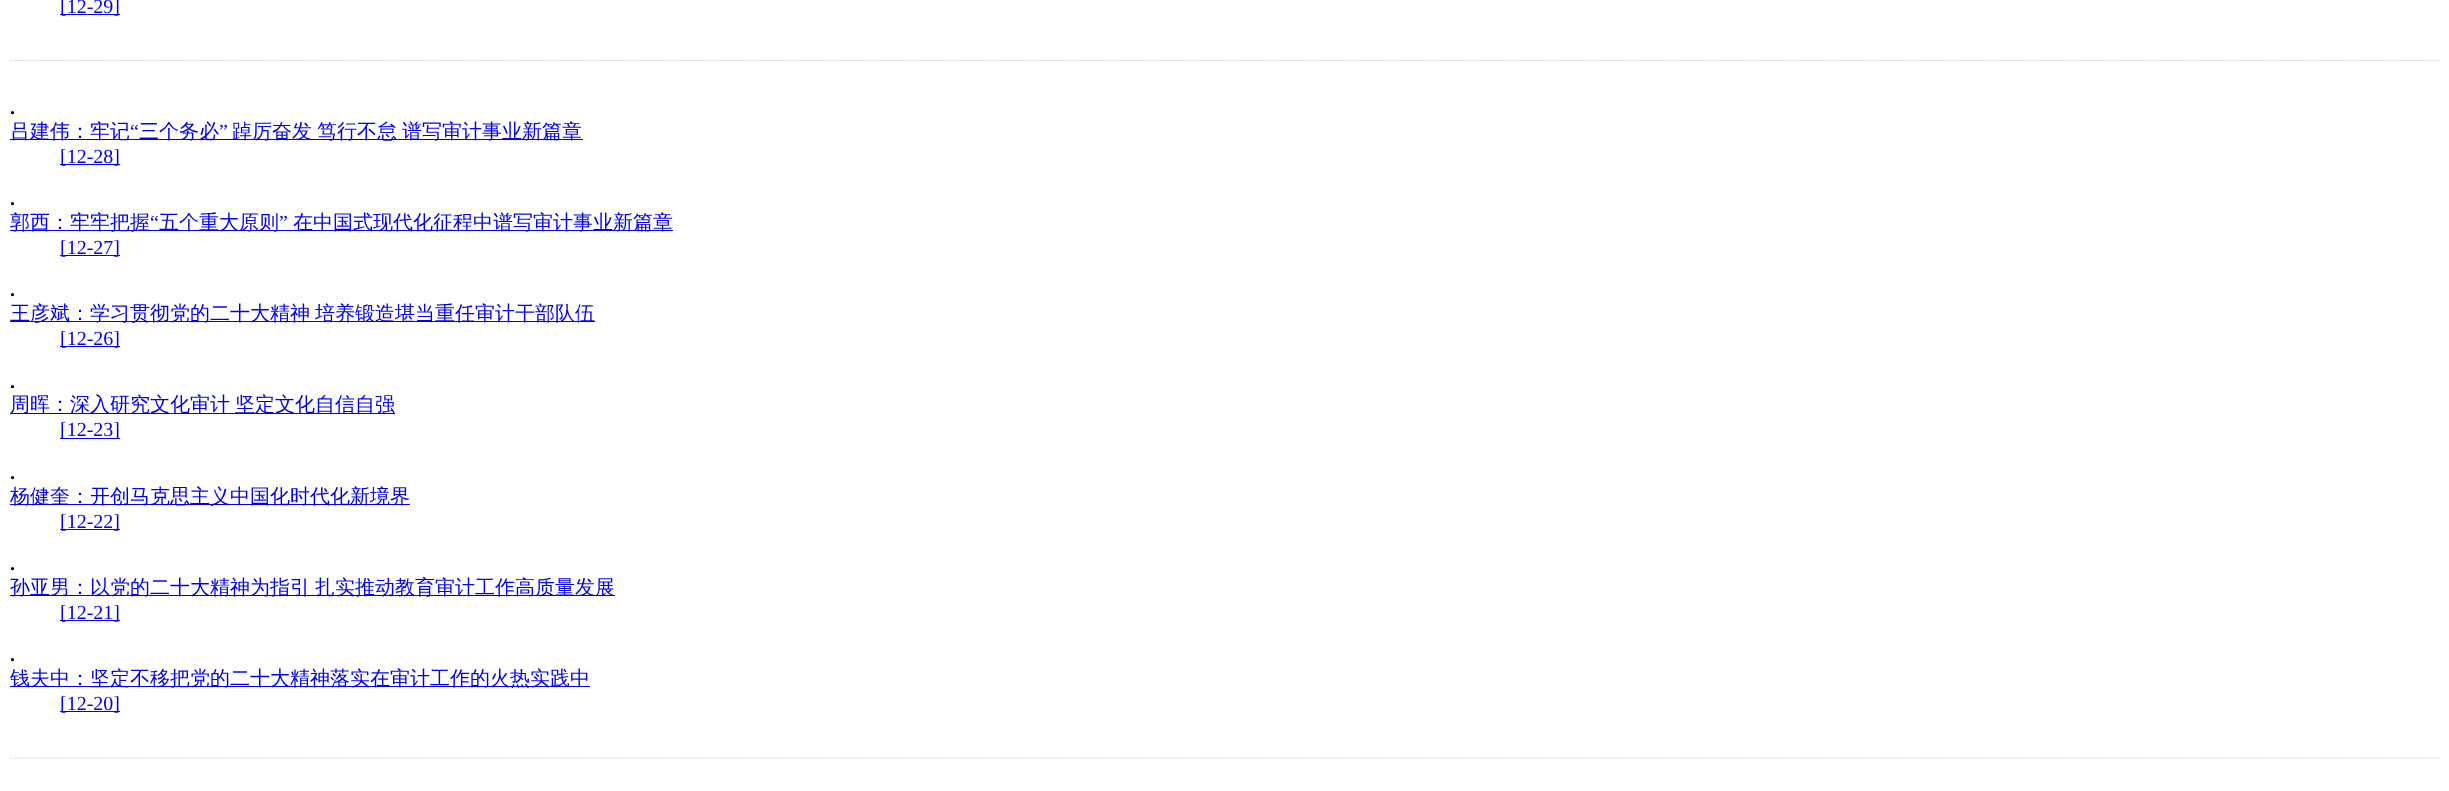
async function draw(canvas) {
  canvas.width = 2449;
  canvas.height = 791;
  const ctx = canvas.getContext('2d');
  ctx.miterLimit = 4;
  ctx.fontKerning = 'normal';
  function label(s, x, y, font, color) {
    ctx.font = font;
    ctx.fillStyle = color;
    ctx.fillText(s, x, y);
  }
  function rect(x, y, w, h, color) {
    ctx.fillStyle = color;
    ctx.fillRect(x, y, w, h);
  }
  let path;

  rect(0, 0, 2449, 791, '#fff');
  rect(60, 14, 60, 1, '#00e');
  label('[12-29]', 60, 13, '20px Liberation Serif', '#00e');
  path = new Path2D('M10 60.5H2440');
  ctx.strokeStyle = '#ccc';
  ctx.lineWidth = 1.2;
  ctx.setLineDash([1.25, 1.25]);
  ctx.stroke(path);
  label('.', 10, 114, 'bold 20px Liberation Serif', '#000');
  rect(10, 139, 573, 1, '#00e');
  label('吕建伟：牢记', 10, 138, '500 20px WenQuanYi Zen Hei', '#00e');
  label('“', 130, 138, '20px Liberation Serif', '#00e');
  label('三个务必', 139, 138, '500 20px WenQuanYi Zen Hei', '#00e');
  label('”', 219, 138, '20px Liberation Serif', '#00e');
  ctx.wordSpacing = '-1px';
  label('踔厉奋发 笃行不怠 谱写审计事业新篇章', 232, 138, '500 20px WenQuanYi Zen Hei', '#00e');
  rect(60, 164, 60, 1, '#00e');
  ctx.wordSpacing = '0px';
  label('[12-28]', 60, 163, '20px Liberation Serif', '#00e');
  label('.', 10, 205, 'bold 20px Liberation Serif', '#000');
  rect(10, 230, 663, 1, '#00e');
  label('郭西：牢牢把握', 10, 229, '500 20px WenQuanYi Zen Hei', '#00e');
  label('“', 150, 229, '20px Liberation Serif', '#00e');
  label('五个重大原则', 159, 229, '500 20px WenQuanYi Zen Hei', '#00e');
  label('”', 279, 229, '20px Liberation Serif', '#00e');
  label('在中国式现代化征程中谱写审计事业新篇章', 293, 229, '500 20px WenQuanYi Zen Hei', '#00e');
  rect(60, 255, 60, 1, '#00e');
  label('[12-27]', 60, 254, '20px Liberation Serif', '#00e');
  label('.', 10, 296, 'bold 20px Liberation Serif', '#000');
  rect(10, 321, 585, 1, '#00e');
  ctx.wordSpacing = '-1px';
  label('王彦斌：学习贯彻党的二十大精神 培养锻造堪当重任审计干部队伍', 10, 320, '500 20px WenQuanYi Zen Hei', '#00e');
  rect(60, 346, 60, 1, '#00e');
  ctx.wordSpacing = '0px';
  label('[12-26]', 60, 345, '20px Liberation Serif', '#00e');
  label('.', 10, 388, 'bold 20px Liberation Serif', '#000');
  rect(10, 413, 385, 1, '#00e');
  ctx.wordSpacing = '-1px';
  label('周晖：深入研究文化审计 坚定文化自信自强', 10, 411, '500 20px WenQuanYi Zen Hei', '#00e');
  rect(60, 438, 60, 1, '#00e');
  ctx.wordSpacing = '0px';
  label('[12-23]', 60, 436, '20px Liberation Serif', '#00e');
  label('.', 10, 479, 'bold 20px Liberation Serif', '#000');
  rect(10, 504, 400, 1, '#00e');
  label('杨健奎：开创马克思主义中国化时代化新境界', 10, 503, '500 20px WenQuanYi Zen Hei', '#00e');
  rect(60, 529, 60, 1, '#00e');
  label('[12-22]', 60, 528, '20px Liberation Serif', '#00e');
  label('.', 10, 570, 'bold 20px Liberation Serif', '#000');
  rect(10, 595, 605, 1, '#00e');
  ctx.wordSpacing = '-1px';
  label('孙亚男：以党的二十大精神为指引 扎实推动教育审计工作高质量发展', 10, 594, '500 20px WenQuanYi Zen Hei', '#00e');
  rect(60, 620, 60, 1, '#00e');
  ctx.wordSpacing = '0px';
  label('[12-21]', 60, 619, '20px Liberation Serif', '#00e');
  label('.', 10, 661, 'bold 20px Liberation Serif', '#000');
  rect(10, 686, 580, 1, '#00e');
  label('钱夫中：坚定不移把党的二十大精神落实在审计工作的火热实践中', 10, 685, '500 20px WenQuanYi Zen Hei', '#00e');
  rect(60, 711, 60, 1, '#00e');
  label('[12-20]', 60, 710, '20px Liberation Serif', '#00e');
  path = new Path2D('M10 758H2440');
  ctx.stroke(path);
}

draw(document.querySelector('canvas'));
